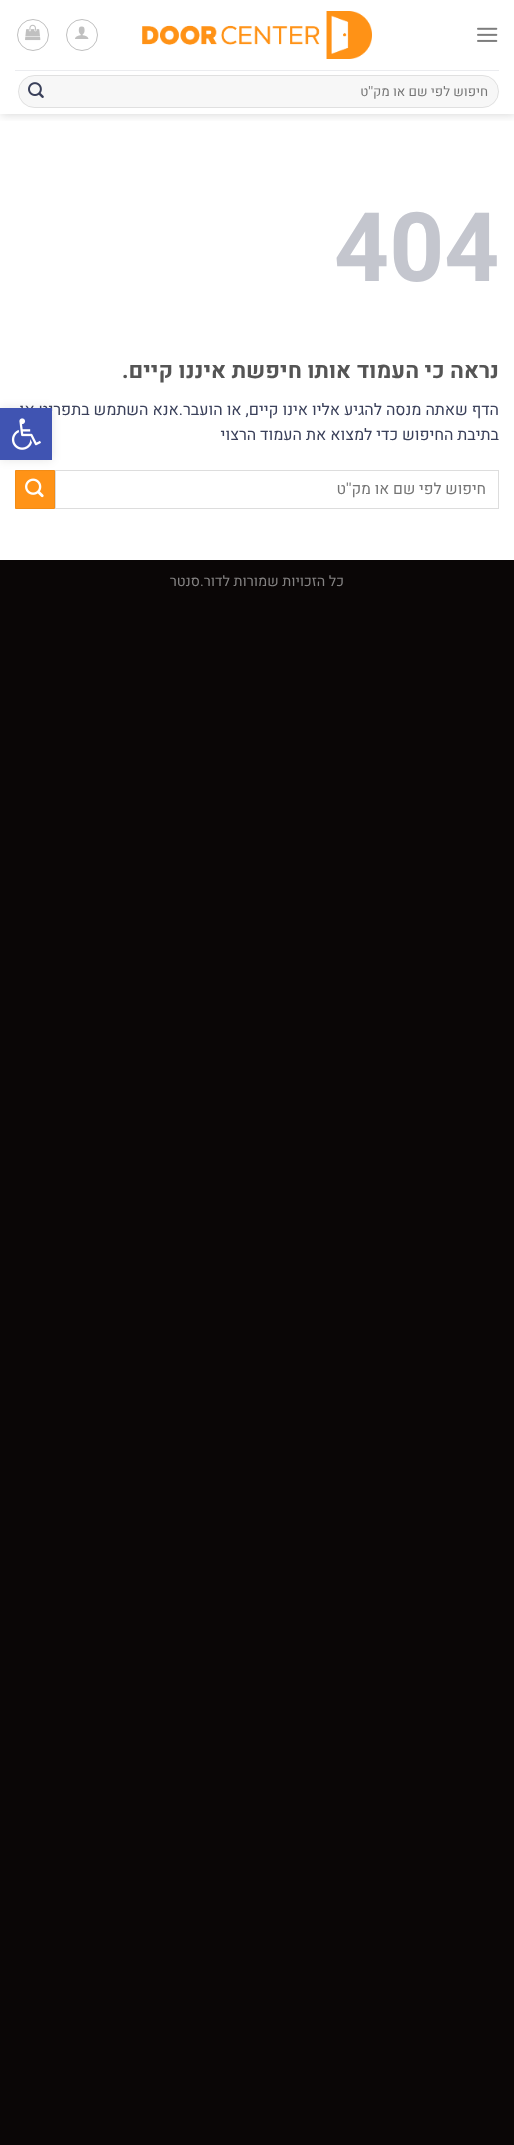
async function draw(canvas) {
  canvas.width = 514;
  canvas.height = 2145;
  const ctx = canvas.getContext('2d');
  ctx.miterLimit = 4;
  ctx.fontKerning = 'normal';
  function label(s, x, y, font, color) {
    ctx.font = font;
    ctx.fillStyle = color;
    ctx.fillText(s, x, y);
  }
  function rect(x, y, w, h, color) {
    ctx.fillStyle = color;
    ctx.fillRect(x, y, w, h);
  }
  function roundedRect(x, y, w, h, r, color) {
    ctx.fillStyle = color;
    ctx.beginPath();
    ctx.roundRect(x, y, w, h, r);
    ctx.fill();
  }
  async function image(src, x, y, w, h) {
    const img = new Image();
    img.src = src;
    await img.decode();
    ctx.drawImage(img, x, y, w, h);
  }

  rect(0, 0, 514, 2145, '#0a0606');
  rect(0, 0, 514, 560, '#fff');
  ctx.save();
  ctx.beginPath();
  ctx.rect(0, 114, 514, 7);
  ctx.clip();
  ctx.fillStyle = '#00000026';
  ctx.filter = 'blur(5px)';
  ctx.beginPath();
  ctx.rect(1, 1, 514, 114);
  ctx.fill();
  ctx.filter = 'none';
  ctx.restore();
  await image('assets/img1.png', 477, 27, 21, 15);
  await image('assets/img2.png', 142, 11, 230, 48);
  ctx.beginPath();
  ctx.arc(82, 35, 15.5, 0, 2 * Math.PI);
  ctx.strokeStyle = '#c0c0c0';
  ctx.stroke();
  await image('assets/img3.png', 75, 26, 14, 13);
  ctx.beginPath();
  ctx.arc(33, 35, 15.5, 0, 2 * Math.PI);
  ctx.stroke();
  await image('assets/img4.png', 25, 24, 16, 17);
  rect(15, 70, 484, 1, '#ebecef');
  roundedRect(18, 75, 481, 33, 16.5, '#f7f7f7');
  ctx.beginPath();
  ctx.roundRect(18.5, 75.5, 480, 32, 16);
  ctx.strokeStyle = '#00000017';
  ctx.stroke();
  ctx.direction = 'rtl';
  label('חיפוש לפי שם או מק\'\'ט', 488, 96, '13.25px Heebo', '#757575');
  await image('assets/img5.png', 28, 82, 16, 16);
  ctx.direction = 'ltr';
  label('404', 334, 281, 'bold 96px Heebo', '#c4c6ce');
  ctx.direction = 'rtl';
  label('נראה כי העמוד אותו חיפשת איננו קיים.', 499, 378, 'bold 22.4px Heebo', '#555');
  label('הדף שאתה מנסה להגיע אליו אינו קיים, או הועבר.אנא השתמש בתפריט או', 499, 415, '16px Heebo', '#3a405a');
  label('בתיבת החיפוש כדי למצוא את העמוד הרצוי', 499, 440, '16px Heebo', '#3a405a');
  ctx.strokeStyle = '#ddd';
  ctx.strokeRect(55.5, 470.5, 443, 38);
  label('חיפוש לפי שם או מק\'\'ט', 486, 494, '15.5px Heebo', '#757575');
  ctx.fillStyle = '#ff9317';
  ctx.beginPath();
  ctx.rect(15.5, 470.5, 39, 38);
  ctx.fill();
  ctx.strokeStyle = '#f28c16';
  ctx.stroke();
  await image('assets/img6.png', 25, 478, 19, 20);
  label('כל הזכויות שמורות לדור.סנטר', 344, 586, '14.4px Heebo', '#858383');
  ctx.fillStyle = '#0000001a';
  ctx.filter = 'blur(5px)';
  ctx.beginPath();
  ctx.rect(0, 408, 52, 52);
  ctx.fill();
  ctx.filter = 'none';
  rect(0, 408, 52, 52, '#4054b2');
  await image('assets/img7.png', 11, 418, 30, 32);
}

draw(document.querySelector('canvas'));
